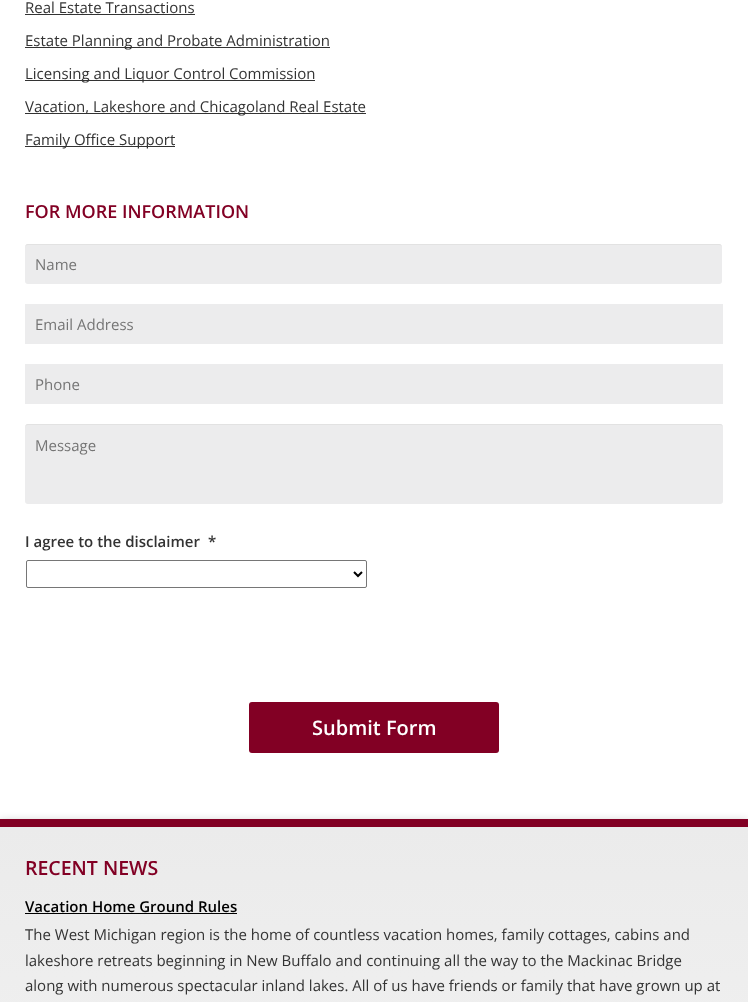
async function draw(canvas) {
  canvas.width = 748;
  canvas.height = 1002;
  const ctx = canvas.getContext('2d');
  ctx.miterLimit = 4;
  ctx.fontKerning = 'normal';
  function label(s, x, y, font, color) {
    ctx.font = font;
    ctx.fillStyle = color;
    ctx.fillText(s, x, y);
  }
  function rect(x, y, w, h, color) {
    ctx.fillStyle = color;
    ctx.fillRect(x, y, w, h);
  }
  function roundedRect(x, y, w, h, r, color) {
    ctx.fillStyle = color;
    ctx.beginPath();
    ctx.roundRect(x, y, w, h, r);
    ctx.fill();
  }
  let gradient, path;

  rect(0, 0, 748, 1002, '#fff');
  label('Real Estate Transactions', 25, 13, '15px Open Sans', '#333');
  rect(25, 14, 170, 1, '#333');
  rect(25, 47, 305, 1, '#333');
  label('Estate Planning and Probate Administration', 25, 46, '15px Open Sans', '#333');
  rect(25, 80, 290, 1, '#333');
  label('Licensing and Liquor Control Commission', 25, 79, '15px Open Sans', '#333');
  rect(25, 113, 341, 1, '#333');
  label('Vacation, Lakeshore and Chicagoland Real Estate', 25, 112, '15px Open Sans', '#333');
  rect(25, 146, 150, 1, '#333');
  label('Family Office Support', 25, 145, '15px Open Sans', '#333');
  label('FOR MORE INFORMATION', 25, 218, '600 18px Open Sans', '#820024');
  roundedRect(25, 244, 697, 40, 3, '#ececed');
  ctx.fillStyle = '#e2e2e2';
  path = new Path2D('M28 245H719C721 245 722 246 722 248C722 246 721 244 719 244H28C26 244 25 246 25 248C25 246 26 245 28 245Z');
  ctx.fill(path);
  label('Name', 35, 270, '15px Open Sans', '#757575');
  rect(25, 304, 698, 40, '#ececed');
  label('Email Address', 35, 330, '15px Open Sans', '#757575');
  rect(25, 364, 698, 40, '#ececed');
  label('Phone', 35, 390, '15px Open Sans', '#757575');
  roundedRect(25, 424, 698, 80, 3, '#ececed');
  ctx.fillStyle = '#e2e2e2';
  path = new Path2D('M28 425H720C722 425 723 426 723 428C723 426 722 424 720 424H28C26 424 25 426 25 428C25 426 26 425 28 425Z');
  ctx.fill(path);
  label('Message', 35, 451, '15px Open Sans', '#757575');
  label('I agree to the disclaimer', 25, 547, '600 15px Open Sans', '#333');
  label('*', 208, 547, '600 15px Open Sans', '#333');
  ctx.beginPath();
  ctx.roundRect(26.5, 560.5, 340, 27, 1.5);
  ctx.strokeStyle = '#767676';
  ctx.stroke();
  path = new Path2D('M354 572L358 576L362 572');
  ctx.strokeStyle = '#000';
  ctx.lineWidth = 2;
  ctx.stroke(path);
  roundedRect(249, 702, 250, 51, 3, '#820024');
  label('Submit Form', 312, 735, '600 20px Open Sans', '#fff');
  ctx.fillStyle = '#0000004d';
  ctx.filter = 'blur(5px)';
  ctx.beginPath();
  ctx.rect(0, 822, 748, 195);
  ctx.fill();
  ctx.filter = 'none';
  gradient = ctx.createLinearGradient(374, 827, 374, 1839);
  gradient.addColorStop(0, '#ebebeb');
  gradient.addColorStop(1, '#fff');
  ctx.fillStyle = gradient;
  ctx.fillRect(0, 827, 748, 175);
  rect(0, 819, 748, 8, '#820024');
  label('RECENT NEWS', 25, 875, '600 19.5px Open Sans', '#820024');
  label('Vacation Home Ground Rules', 25, 912, '600 15px Open Sans', '#000');
  rect(25, 913, 212, 1, '#000');
  label('The West Michigan region is the home of countless vacation homes, family cottages, cabins and', 25, 940, '15px Open Sans', '#333');
  label('lakeshore retreats beginning in New Buffalo and continuing all the way to the Mackinac Bridge', 25, 966, '15px Open Sans', '#333');
  label('along with numerous spectacular inland lakes. All of us have friends or family that have grown up at', 25, 991, '15px Open Sans', '#333');
}

draw(document.querySelector('canvas'));
